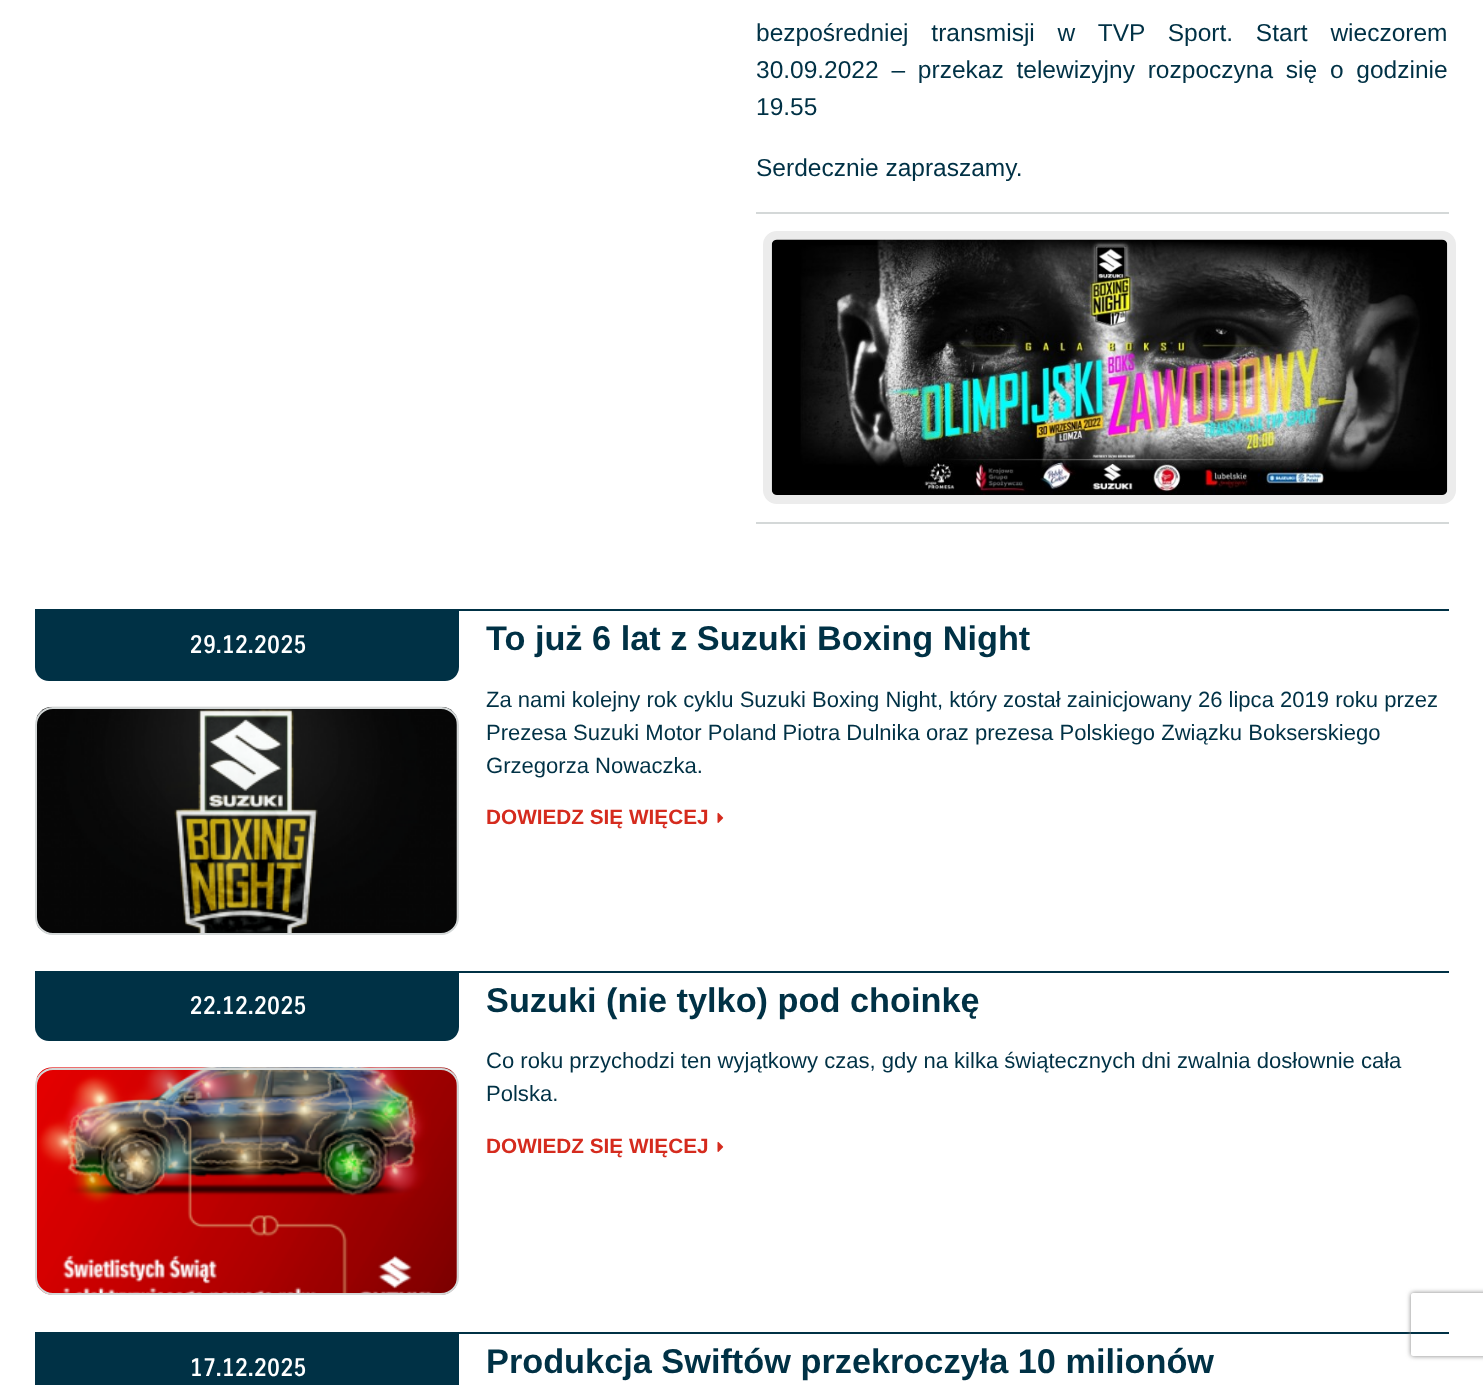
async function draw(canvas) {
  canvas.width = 1483;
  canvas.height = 1385;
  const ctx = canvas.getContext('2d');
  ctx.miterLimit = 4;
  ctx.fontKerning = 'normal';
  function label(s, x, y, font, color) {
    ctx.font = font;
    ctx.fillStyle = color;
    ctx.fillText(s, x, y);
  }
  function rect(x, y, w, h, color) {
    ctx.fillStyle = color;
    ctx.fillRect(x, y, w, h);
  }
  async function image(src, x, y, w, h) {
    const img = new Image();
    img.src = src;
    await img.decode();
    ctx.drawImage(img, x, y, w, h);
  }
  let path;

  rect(0, 0, 1483, 1385, '#fff');
  ctx.wordSpacing = '16px';
  label('bezpośredniej transmisji w TVP Sport. Start wieczorem', 756, 41, '24.5px Liberation Sans', '#003145');
  ctx.wordSpacing = '6px';
  label('30.09.2022 – przekaz telewizyjny rozpoczyna się o godzinie', 756, 78, '24.5px Liberation Sans', '#003145');
  ctx.wordSpacing = '0px';
  label('19.55', 756, 115, '24.5px Liberation Sans', '#003145');
  label('Serdecznie zapraszamy.', 756, 176, '24.5px Liberation Sans', '#003145');
  rect(756, 212, 693, 2, '#d4d8d8');
  rect(756, 522, 693, 2, '#d4d8d8');
  ctx.beginPath();
  ctx.roundRect(767.5, 235.5, 684, 264, 9.5);
  ctx.strokeStyle = '#ececec';
  ctx.lineWidth = 9;
  ctx.stroke();
  await image('assets/img1.png', 771, 239, 677, 256);
  rect(35, 609, 1414, 2, '#003145');
  ctx.beginPath();
  ctx.roundRect(35, 611, 424, 70, [0, 0, 14, 14]);
  ctx.fill();
  label('29.12.2025', 189, 653, 'bold 24.5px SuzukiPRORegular', '#fff');
  label('To już 6 lat z Suzuki Boxing Night', 486, 650, 'bold 34.3px Liberation Sans', '#003145');
  label('Za nami kolejny rok cyklu Suzuki Boxing Night, który został zainicjowany 26 lipca 2019 roku przez', 486, 707, '22.05px Liberation Sans', '#003145');
  label('Prezesa Suzuki Motor Poland Piotra Dulnika oraz prezesa Polskiego Związku Bokserskiego', 486, 740, '22.05px Liberation Sans', '#003145');
  label('Grzegorza Nowaczka.', 486, 773, '22.05px Liberation Sans', '#003145');
  label('DOWIEDZ SIĘ WIĘCEJ', 486, 824, 'bold 20.75px Liberation Sans', '#d52b1e');
  await image('assets/img2.png', 717, 812, 7, 11);
  await image('assets/img3.png', 36, 706, 421, 229);
  ctx.beginPath();
  ctx.roundRect(36, 708, 422, 226, 17);
  ctx.strokeStyle = '#d4d8d8';
  ctx.lineWidth = 2;
  ctx.stroke();
  rect(35, 971, 1414, 2, '#003145');
  ctx.beginPath();
  ctx.roundRect(35, 973, 424, 68, [0, 0, 14, 14]);
  ctx.fill();
  label('22.12.2025', 189, 1014, 'bold 24.5px SuzukiPRORegular', '#fff');
  label('Suzuki (nie tylko) pod choinkę', 486, 1012, 'bold 34.3px Liberation Sans', '#003145');
  label('Co roku przychodzi ten wyjątkowy czas, gdy na kilka świątecznych dni zwalnia dosłownie cała', 486, 1068, '22.05px Liberation Sans', '#003145');
  label('Polska.', 486, 1101, '22.05px Liberation Sans', '#003145');
  label('DOWIEDZ SIĘ WIĘCEJ', 486, 1153, 'bold 20.75px Liberation Sans', '#d52b1e');
  await image('assets/img2.png', 717, 1141, 7, 11);
  await image('assets/img4.png', 36, 1067, 421, 228);
  ctx.beginPath();
  ctx.roundRect(36, 1069, 422, 225, 17);
  ctx.stroke();
  rect(35, 1332, 1414, 2, '#003145');
  rect(35, 1334, 424, 51, '#003145');
  label('17.12.2025', 189, 1376, 'bold 24.5px SuzukiPRORegular', '#fff');
  label('Produkcja Swiftów przekroczyła 10 milionów', 486, 1373, 'bold 34.3px Liberation Sans', '#003145');
  ctx.save();
  path = new Path2D('M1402 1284H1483V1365H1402ZM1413 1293H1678C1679 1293 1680 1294 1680 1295V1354C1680 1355 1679 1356 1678 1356H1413C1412 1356 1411 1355 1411 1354V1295C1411 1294 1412 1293 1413 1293Z');
  ctx.clip(path, 'evenodd');
  ctx.fillStyle = '#808080';
  ctx.filter = 'blur(2.5px)';
  ctx.beginPath();
  ctx.roundRect(1411, 1293, 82, 63, 2);
  ctx.fill();
  ctx.filter = 'none';
  ctx.restore();
}

draw(document.querySelector('canvas'));
